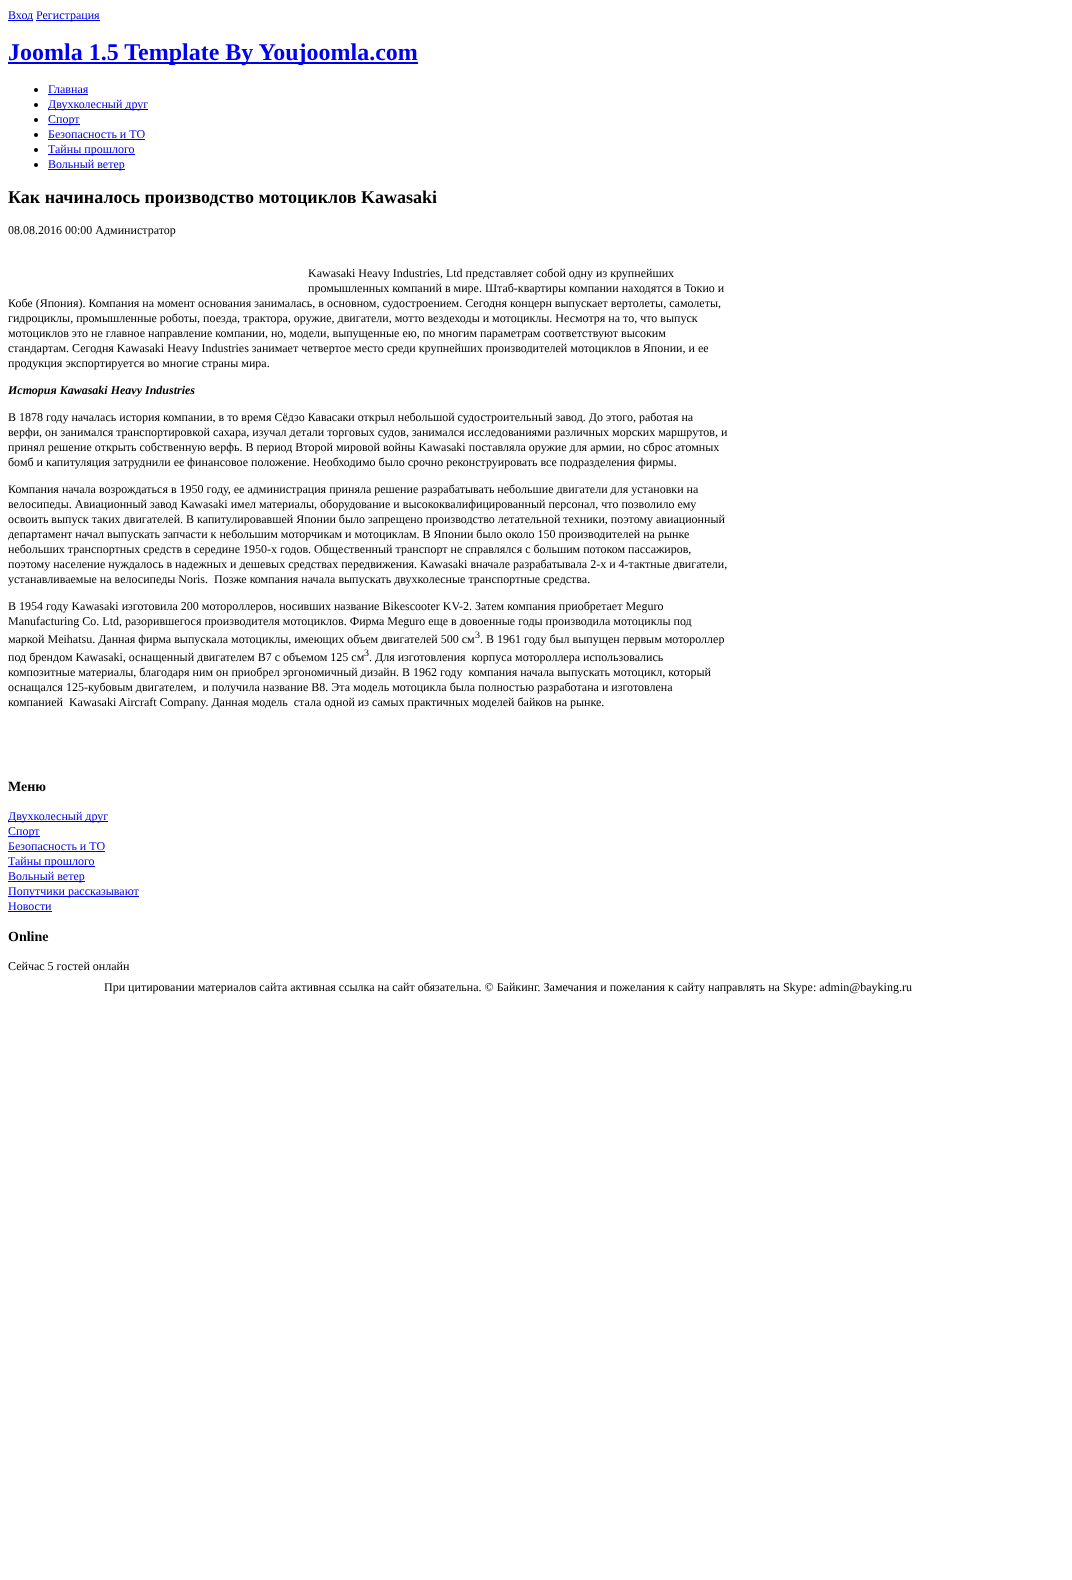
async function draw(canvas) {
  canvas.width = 1072;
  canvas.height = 1580;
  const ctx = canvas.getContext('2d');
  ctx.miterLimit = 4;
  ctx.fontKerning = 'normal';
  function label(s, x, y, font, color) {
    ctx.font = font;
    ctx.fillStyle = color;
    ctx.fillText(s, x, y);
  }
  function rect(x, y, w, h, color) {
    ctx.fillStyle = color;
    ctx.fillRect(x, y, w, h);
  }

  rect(0, 0, 1072, 1580, '#fff');
  rect(8, 20, 25, 1, '#00e');
  label('Вход', 8, 19, '12px Liberation Serif', '#00e');
  rect(36, 20, 64, 1, '#00e');
  label('Регистрация', 36, 19, '12px Liberation Serif', '#00e');
  rect(8, 62, 410, 2, '#00e');
  label('Joomla 1.5 Template By Youjoomla.com', 8, 60, 'bold 24px Liberation Serif', '#00e');
  ctx.fillStyle = '#000';
  ctx.beginPath();
  ctx.arc(36, 90, 2, 0, 2 * Math.PI);
  ctx.fill();
  label('Главная', 48, 93, '12px Liberation Serif', '#00e');
  rect(48, 94, 40, 1, '#00e');
  ctx.fillStyle = '#000';
  ctx.beginPath();
  ctx.arc(36, 105, 2, 0, 2 * Math.PI);
  ctx.fill();
  rect(48, 109, 100, 1, '#00e');
  label('Двухколесный друг', 48, 108, '12px Liberation Serif', '#00e');
  ctx.fillStyle = '#000';
  ctx.beginPath();
  ctx.arc(36, 120, 2, 0, 2 * Math.PI);
  ctx.fill();
  rect(48, 124, 32, 1, '#00e');
  label('Спорт', 48, 123, '12px Liberation Serif', '#00e');
  ctx.fillStyle = '#000';
  ctx.beginPath();
  ctx.arc(36, 135, 2, 0, 2 * Math.PI);
  ctx.fill();
  label('Безопасность и ТО', 48, 138, '12px Liberation Serif', '#00e');
  rect(48, 139, 97, 1, '#00e');
  ctx.fillStyle = '#000';
  ctx.beginPath();
  ctx.arc(36, 150, 2, 0, 2 * Math.PI);
  ctx.fill();
  rect(48, 154, 87, 1, '#00e');
  label('Тайны прошлого', 48, 153, '12px Liberation Serif', '#00e');
  ctx.fillStyle = '#000';
  ctx.beginPath();
  ctx.arc(36, 165, 2, 0, 2 * Math.PI);
  ctx.fill();
  rect(48, 169, 77, 1, '#00e');
  label('Вольный ветер', 48, 168, '12px Liberation Serif', '#00e');
  label('Как начиналось производство мотоциклов Kawasaki', 8, 203, 'bold 18px Liberation Serif', '#000');
  label('08.08.2016 00:00 Администратор', 8, 234, '12px Liberation Serif', '#000');
  label('Kawasaki Heavy Industries, Ltd представляет собой одну из крупнейших', 308, 277, '12px Liberation Serif', '#000');
  label('промышленных компаний в мире. Штаб-квартиры компании находятся в Токио и', 308, 292, '12px Liberation Serif', '#000');
  label('Кобе (Япония). Компания на момент основания занималась, в основном, судостроением. Сегодня концерн выпускает вертолеты, самолеты,', 8, 307, '12px Liberation Serif', '#000');
  label('гидроциклы, промышленные роботы, поезда, трактора, оружие, двигатели, мотто вездеходы и мотоциклы. Несмотря на то, что выпуск', 8, 322, '12px Liberation Serif', '#000');
  label('мотоциклов это не главное направление компании, но, модели, выпущенные ею, по многим параметрам соответствуют высоким', 8, 337, '12px Liberation Serif', '#000');
  label('стандартам. Сегодня Kawasaki Heavy Industries занимает четвертое место среди крупнейших производителей мотоциклов в Японии, и ее', 8, 352, '12px Liberation Serif', '#000');
  label('продукция экспортируется во многие страны мира.', 8, 367, '12px Liberation Serif', '#000');
  label('История Kawasaki Heavy Industries', 8, 394, 'italic bold 12px Liberation Serif', '#000');
  label('В 1878 году началась история компании, в то время Сёдзо Кавасаки открыл небольшой судостроительный завод. До этого, работая на', 8, 421, '12px Liberation Serif', '#000');
  label('верфи, он занимался транспортировкой сахара, изучал детали торговых судов, занимался исследованиями различных морских маршрутов, и', 8, 436, '12px Liberation Serif', '#000');
  label('принял решение открыть собственную верфь. В период Второй мировой войны Kawasaki поставляла оружие для армии, но сброс атомных', 8, 451, '12px Liberation Serif', '#000');
  label('бомб и капитуляция затруднили ее финансовое положение. Необходимо было срочно реконструировать все подразделения фирмы.', 8, 466, '12px Liberation Serif', '#000');
  label('Компания начала возрождаться в 1950 году, ее администрация приняла решение разрабатывать небольшие двигатели для установки на', 8, 493, '12px Liberation Serif', '#000');
  label('велосипеды. Авиационный завод Kawasaki имел материалы, оборудование и высококвалифицированный персонал, что позволило ему', 8, 508, '12px Liberation Serif', '#000');
  label('освоить выпуск таких двигателей. В капитулировавшей Японии было запрещено производство летательной техники, поэтому авиационный', 8, 523, '12px Liberation Serif', '#000');
  label('департамент начал выпускать запчасти к небольшим моторчикам и мотоциклам. В Японии было около 150 производителей на рынке', 8, 538, '12px Liberation Serif', '#000');
  label('небольших транспортных средств в середине 1950-х годов. Общественный транспорт не справлялся с большим потоком пассажиров,', 8, 553, '12px Liberation Serif', '#000');
  label('поэтому население нуждалось в надежных и дешевых средствах передвижения. Kawasaki вначале разрабатывала 2-х и 4-тактные двигатели,', 8, 568, '12px Liberation Serif', '#000');
  label('устанавливаемые на велосипеды Noris.  Позже компания начала выпускать двухколесные транспортные средства.', 8, 583, '12px Liberation Serif', '#000');
  label('В 1954 году Kawasaki изготовила 200 мотороллеров, носивших название Bikescooter KV-2. Затем компания приобретает Meguro', 8, 610, '12px Liberation Serif', '#000');
  label('Manufacturing Co. Ltd, разорившегося производителя мотоциклов. Фирма Meguro еще в довоенные годы производила мотоциклы под', 8, 625, '12px Liberation Serif', '#000');
  label('маркой Meihatsu. Данная фирма выпускала мотоциклы, имеющих объем двигателей 500 см', 8, 643, '12px Liberation Serif', '#000');
  label('3', 475, 638, '10px Liberation Serif', '#000');
  label('. В 1961 году был выпущен первым мотороллер', 480, 643, '12px Liberation Serif', '#000');
  label('под брендом Kawasaki, оснащенный двигателем В7 с объемом 125 см', 8, 661, '12px Liberation Serif', '#000');
  label('3', 364, 656, '10px Liberation Serif', '#000');
  label('. Для изготовления  корпуса мотороллера использовались', 369, 661, '12px Liberation Serif', '#000');
  label('композитные материалы, благодаря ним он приобрел эргономичный дизайн. В 1962 году  компания начала выпускать мотоцикл, который', 8, 676, '12px Liberation Serif', '#000');
  label('оснащался 125-кубовым двигателем,  и получила название В8. Эта модель мотоцикла была полностью разработана и изготовлена', 8, 691, '12px Liberation Serif', '#000');
  label('компанией  Kawasaki Aircraft Company. Данная модель  стала одной из самых практичных моделей байков на рынке.', 8, 706, '12px Liberation Serif', '#000');
  label('Меню', 8, 791, 'bold 14px Liberation Serif', '#000');
  rect(8, 821, 100, 1, '#00e');
  label('Двухколесный друг', 8, 820, '12px Liberation Serif', '#00e');
  rect(8, 836, 32, 1, '#00e');
  label('Спорт', 8, 835, '12px Liberation Serif', '#00e');
  label('Безопасность и ТО', 8, 850, '12px Liberation Serif', '#00e');
  rect(8, 851, 97, 1, '#00e');
  rect(8, 866, 87, 1, '#00e');
  label('Тайны прошлого', 8, 865, '12px Liberation Serif', '#00e');
  rect(8, 881, 77, 1, '#00e');
  label('Вольный ветер', 8, 880, '12px Liberation Serif', '#00e');
  rect(8, 896, 131, 1, '#00e');
  label('Попутчики рассказывают', 8, 895, '12px Liberation Serif', '#00e');
  label('Новости', 8, 910, '12px Liberation Serif', '#00e');
  rect(8, 911, 44, 1, '#00e');
  label('Online', 8, 941, 'bold 14px Liberation Serif', '#000');
  label('Сейчас 5 гостей онлайн', 8, 970, '12px Liberation Serif', '#000');
  label('При цитировании материалов сайта активная ссылка на сайт обязательна. © Байкинг. Замечания и пожелания к сайту направлять на Skype: admin@bayking.ru', 104, 991, '12px Liberation Serif', '#000');
}

draw(document.querySelector('canvas'));
